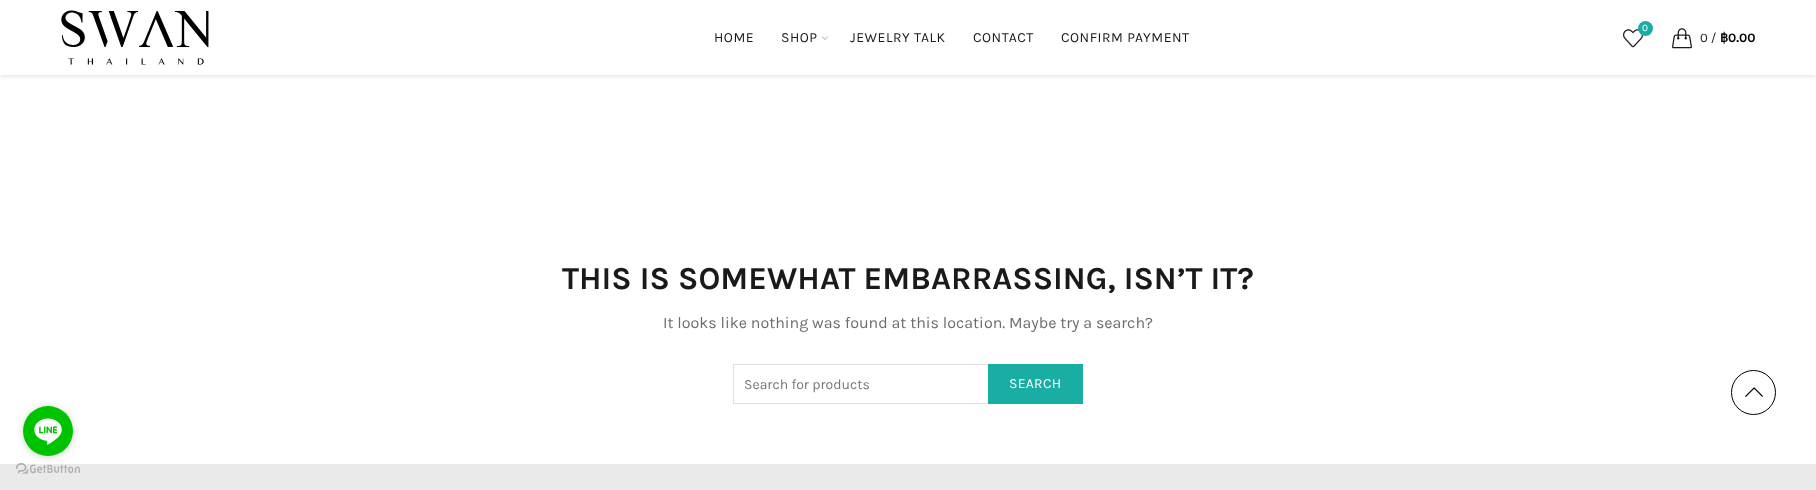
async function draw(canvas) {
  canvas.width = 1816;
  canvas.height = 490;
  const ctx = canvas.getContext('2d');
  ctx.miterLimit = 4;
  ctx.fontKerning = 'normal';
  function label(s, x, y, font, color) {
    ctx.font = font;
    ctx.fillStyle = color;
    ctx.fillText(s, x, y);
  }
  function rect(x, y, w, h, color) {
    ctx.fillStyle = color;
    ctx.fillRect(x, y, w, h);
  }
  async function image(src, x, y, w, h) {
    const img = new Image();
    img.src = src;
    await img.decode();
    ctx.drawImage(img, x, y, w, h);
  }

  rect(0, 0, 1816, 490, '#fff');
  ctx.fillStyle = '#bebebe80';
  ctx.filter = 'blur(2.5px)';
  ctx.beginPath();
  ctx.rect(0, 1, 1816, 75);
  ctx.fill();
  ctx.filter = 'none';
  rect(0, 0, 1816, 75, '#fff');
  await image('assets/img1.png', 61, 10, 148, 55);
  ctx.letterSpacing = '0.5px';
  label('HOME', 714, 42, '14px Karla', '#1b1919');
  label('SHOP', 781, 42, '14px Karla', '#1b1919');
  await image('assets/img2.png', 821, 36, 8, 4);
  label('JEWELRY TALK', 850, 42, '14px Karla', '#1b1919');
  label('CONTACT', 973, 42, '14px Karla', '#1b1919');
  label('CONFIRM PAYMENT', 1061, 42, '14px Karla', '#1b1919');
  await image('assets/img3.png', 1623, 29, 20, 19);
  ctx.fillStyle = '#1aada3';
  ctx.beginPath();
  ctx.arc(1645.5, 28.5, 7.5, 0, 2 * Math.PI);
  ctx.fill();
  ctx.letterSpacing = '0px';
  label('0', 1642, 31, '10px Karla', '#fff');
  await image('assets/img4.png', 1672, 28, 20, 21);
  label('0 /', 1700, 42, '13px Karla', '#1b1919');
  label('฿', 1720, 42, 'bold 13px DejaVu Sans', '#000');
  label('0.00', 1728, 42, 'bold 13px Karla', '#000');
  label('THIS IS SOMEWHAT EMBARRASSING, ISN’T IT?', 562, 289, 'bold 32px Karla', '#1b1919');
  label('It looks like nothing was found at this location. Maybe try a search?', 663, 328, '16px Karla', '#6c6c6c');
  ctx.strokeStyle = '#e0e0e0';
  ctx.strokeRect(733.5, 364.5, 349, 39);
  label('Search for products', 744, 389, '14px Karla', '#757575');
  rect(988, 364, 95, 40, '#1aada3');
  ctx.letterSpacing = '0.25px';
  label('SEARCH', 1009, 388, '14px Karla', '#fff');
  rect(0, 464, 1816, 26, '#eaeaea');
  await image('assets/img6.png', 16, 463, 64, 11);
  ctx.fillStyle = '#88888866';
  ctx.filter = 'blur(3.5px)';
  ctx.beginPath();
  ctx.roundRect(23, 407, 50, 50, 25);
  ctx.fill();
  ctx.filter = 'none';
  ctx.fillStyle = '#00c300';
  ctx.beginPath();
  ctx.arc(48, 431, 25, 0, 2 * Math.PI);
  ctx.fill();
  await image('assets/img5.png', 34, 418, 28, 27);
  ctx.beginPath();
  ctx.arc(1753.5, 392.5, 22, 0, 2 * Math.PI);
  ctx.strokeStyle = '#000';
  ctx.stroke();
  await image('assets/img7.png', 1745, 387, 18, 10);
}

draw(document.querySelector('canvas'));
